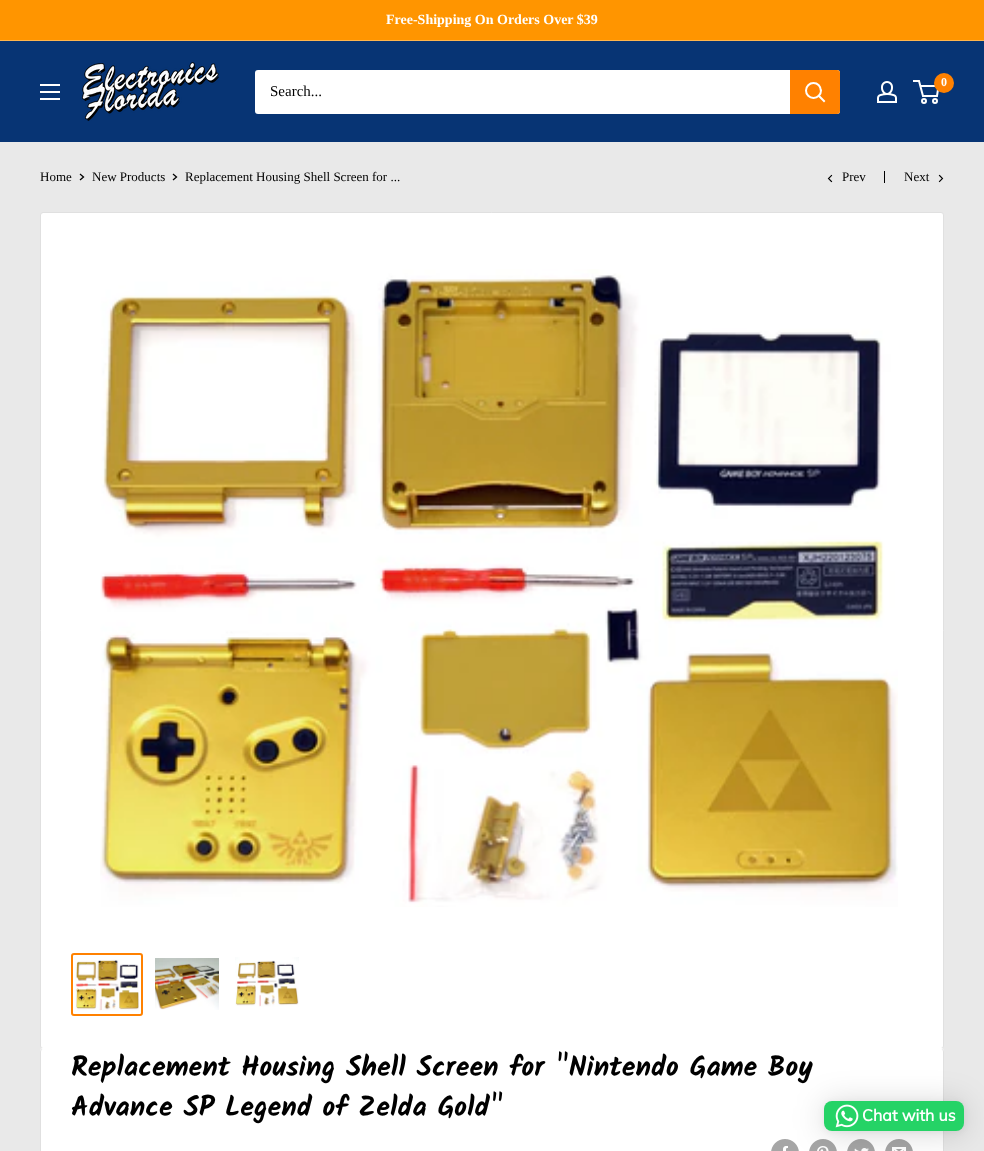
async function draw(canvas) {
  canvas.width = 984;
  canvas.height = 1151;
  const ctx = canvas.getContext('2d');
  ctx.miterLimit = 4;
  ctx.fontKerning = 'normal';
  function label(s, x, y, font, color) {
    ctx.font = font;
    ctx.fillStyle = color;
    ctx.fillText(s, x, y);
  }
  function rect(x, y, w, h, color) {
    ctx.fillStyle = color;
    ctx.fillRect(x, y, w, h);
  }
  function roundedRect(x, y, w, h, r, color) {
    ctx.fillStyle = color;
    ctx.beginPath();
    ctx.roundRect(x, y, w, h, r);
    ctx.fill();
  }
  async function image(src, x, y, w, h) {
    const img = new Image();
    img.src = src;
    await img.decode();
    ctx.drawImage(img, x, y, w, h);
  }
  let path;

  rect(0, 0, 984, 1151, '#e9e9e9');
  rect(0, 0, 984, 40, '#ff9500');
  rect(0, 40, 984, 1, '#ffb54d');
  label('Free-Shipping On Orders Over $39', 386, 24, 'bold 14px Liberation Serif', '#fff');
  rect(0, 41, 984, 101, '#073474');
  await image('assets/img1.png', 81, 62, 138, 59);
  await image('assets/img2.png', 877, 81, 20, 22);
  ctx.beginPath();
  ctx.arc(924, 101, 2, 0, 2 * Math.PI);
  ctx.strokeStyle = '#fff';
  ctx.lineWidth = 2;
  ctx.stroke();
  ctx.beginPath();
  ctx.arc(935, 101, 2, 0, 2 * Math.PI);
  ctx.stroke();
  path = new Path2D('M920.5 86H938.5L937 96H923L919 81H913');
  ctx.stroke(path);
  ctx.fillStyle = '#ff8100';
  ctx.beginPath();
  ctx.arc(944, 83, 10, 0, 2 * Math.PI);
  ctx.fill();
  label('0', 941, 86, 'bold 12px Liberation Serif', '#fff');
  await image('assets/img3.png', 40, 84, 20, 16);
  roundedRect(255, 70, 585, 44, 3, '#fff');
  label('Search...', 270, 96, '15px Liberation Serif', '#000');
  ctx.fillStyle = '#ff8100';
  ctx.beginPath();
  ctx.roundRect(790, 70, 50, 44, [0, 3, 3, 0]);
  ctx.fill();
  path = new Path2D('M824 101L819 96');
  ctx.lineCap = 'square';
  ctx.stroke(path);
  ctx.beginPath();
  ctx.arc(813.5, 90.5, 7.5, 0, 2 * Math.PI);
  ctx.stroke();
  label('Home', 40, 181, '13px Liberation Serif', '#000');
  path = new Path2D('M80.5 174.5L83.5 177L80.5 179.5');
  ctx.strokeStyle = '#000';
  ctx.lineWidth = 1.3;
  ctx.stroke(path);
  label('New Products', 92, 181, '13px Liberation Serif', '#000');
  path = new Path2D('M173.5 174.5L176.5 177L173.5 179.5');
  ctx.stroke(path);
  label('Replacement Housing Shell Screen for ...', 185, 181, '13px Liberation Serif', '#000');
  path = new Path2D('M831.5 181.5L828.5 178.5L831.5 175.5');
  ctx.lineWidth = 1.1;
  ctx.stroke(path);
  label('Prev', 842, 181, '13px Liberation Serif', '#000');
  rect(884, 171, 1, 12, '#000');
  label('Next', 904, 181, '13px Liberation Serif', '#000');
  path = new Path2D('M939.5 175.5L942.5 178.5L939.5 181.5');
  ctx.stroke(path);
  ctx.fillStyle = '#fff';
  ctx.beginPath();
  ctx.roundRect(40.5, 212.5, 903, 836, 2.5);
  ctx.fill();
  ctx.strokeStyle = '#e0e0e0';
  ctx.lineWidth = 1;
  ctx.stroke();
  await image('assets/img4.png', 100, 269, 798, 638);
  ctx.beginPath();
  ctx.roundRect(72, 954, 70, 61, 2);
  ctx.strokeStyle = '#ff8100';
  ctx.lineWidth = 2;
  ctx.stroke();
  await image('assets/img5.png', 75, 959, 64, 52);
  await image('assets/img6.png', 155, 958, 64, 52);
  await image('assets/img7.png', 235, 957, 64, 50);
  path = new Path2D('M43 1048C41 1048 40 1050 40 1052C40 1050 41 1049 43 1049H941C943 1049 944 1050 944 1052C944 1050 943 1048 941 1048Z');
  ctx.fill(path);
  roundedRect(40, 1049, 904, 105, 3, '#fff');
  ctx.fillStyle = '#e0e0e0';
  path = new Path2D('M43 1049H941C943 1049 944 1050 944 1052V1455C944 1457 943 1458 941 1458H43C41 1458 40 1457 40 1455V1052C40 1050 41 1049 43 1049ZM43 1049H941C942 1049 943 1050 943 1052V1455C943 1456 942 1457 941 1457H43C42 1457 41 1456 41 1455V1052C41 1050 42 1049 43 1049Z');
  ctx.fill(path, 'evenodd');
  label('Replacement Housing Shell Screen for "Nintendo Game Boy', 71, 1076, 'bold 28px Kalam', '#000');
  label('Advance SP Legend of Zelda Gold"', 71, 1116, 'bold 28px Kalam', '#000');
  await image('assets/img8.png', 771, 1139, 28, 12);
  await image('assets/img9.png', 809, 1139, 28, 12);
  await image('assets/img10.png', 847, 1139, 28, 12);
  await image('assets/img11.png', 885, 1139, 28, 12);
  ctx.fillStyle = '#00000029';
  ctx.filter = 'blur(16px)';
  ctx.beginPath();
  ctx.roundRect(824, 1103, 140, 30, 8);
  ctx.fill();
  ctx.filter = 'none';
  ctx.fillStyle = '#0000000f';
  ctx.filter = 'blur(3px)';
  ctx.beginPath();
  ctx.roundRect(824, 1102, 140, 30, 8);
  ctx.fill();
  ctx.filter = 'none';
  roundedRect(824, 1101, 140, 30, 8, '#25d366');
  await image('assets/img12.png', 835, 1104, 24, 24);
  label('Chat with us', 862, 1121, 'bold 16px Muli', '#fff');
}

draw(document.querySelector('canvas'));
